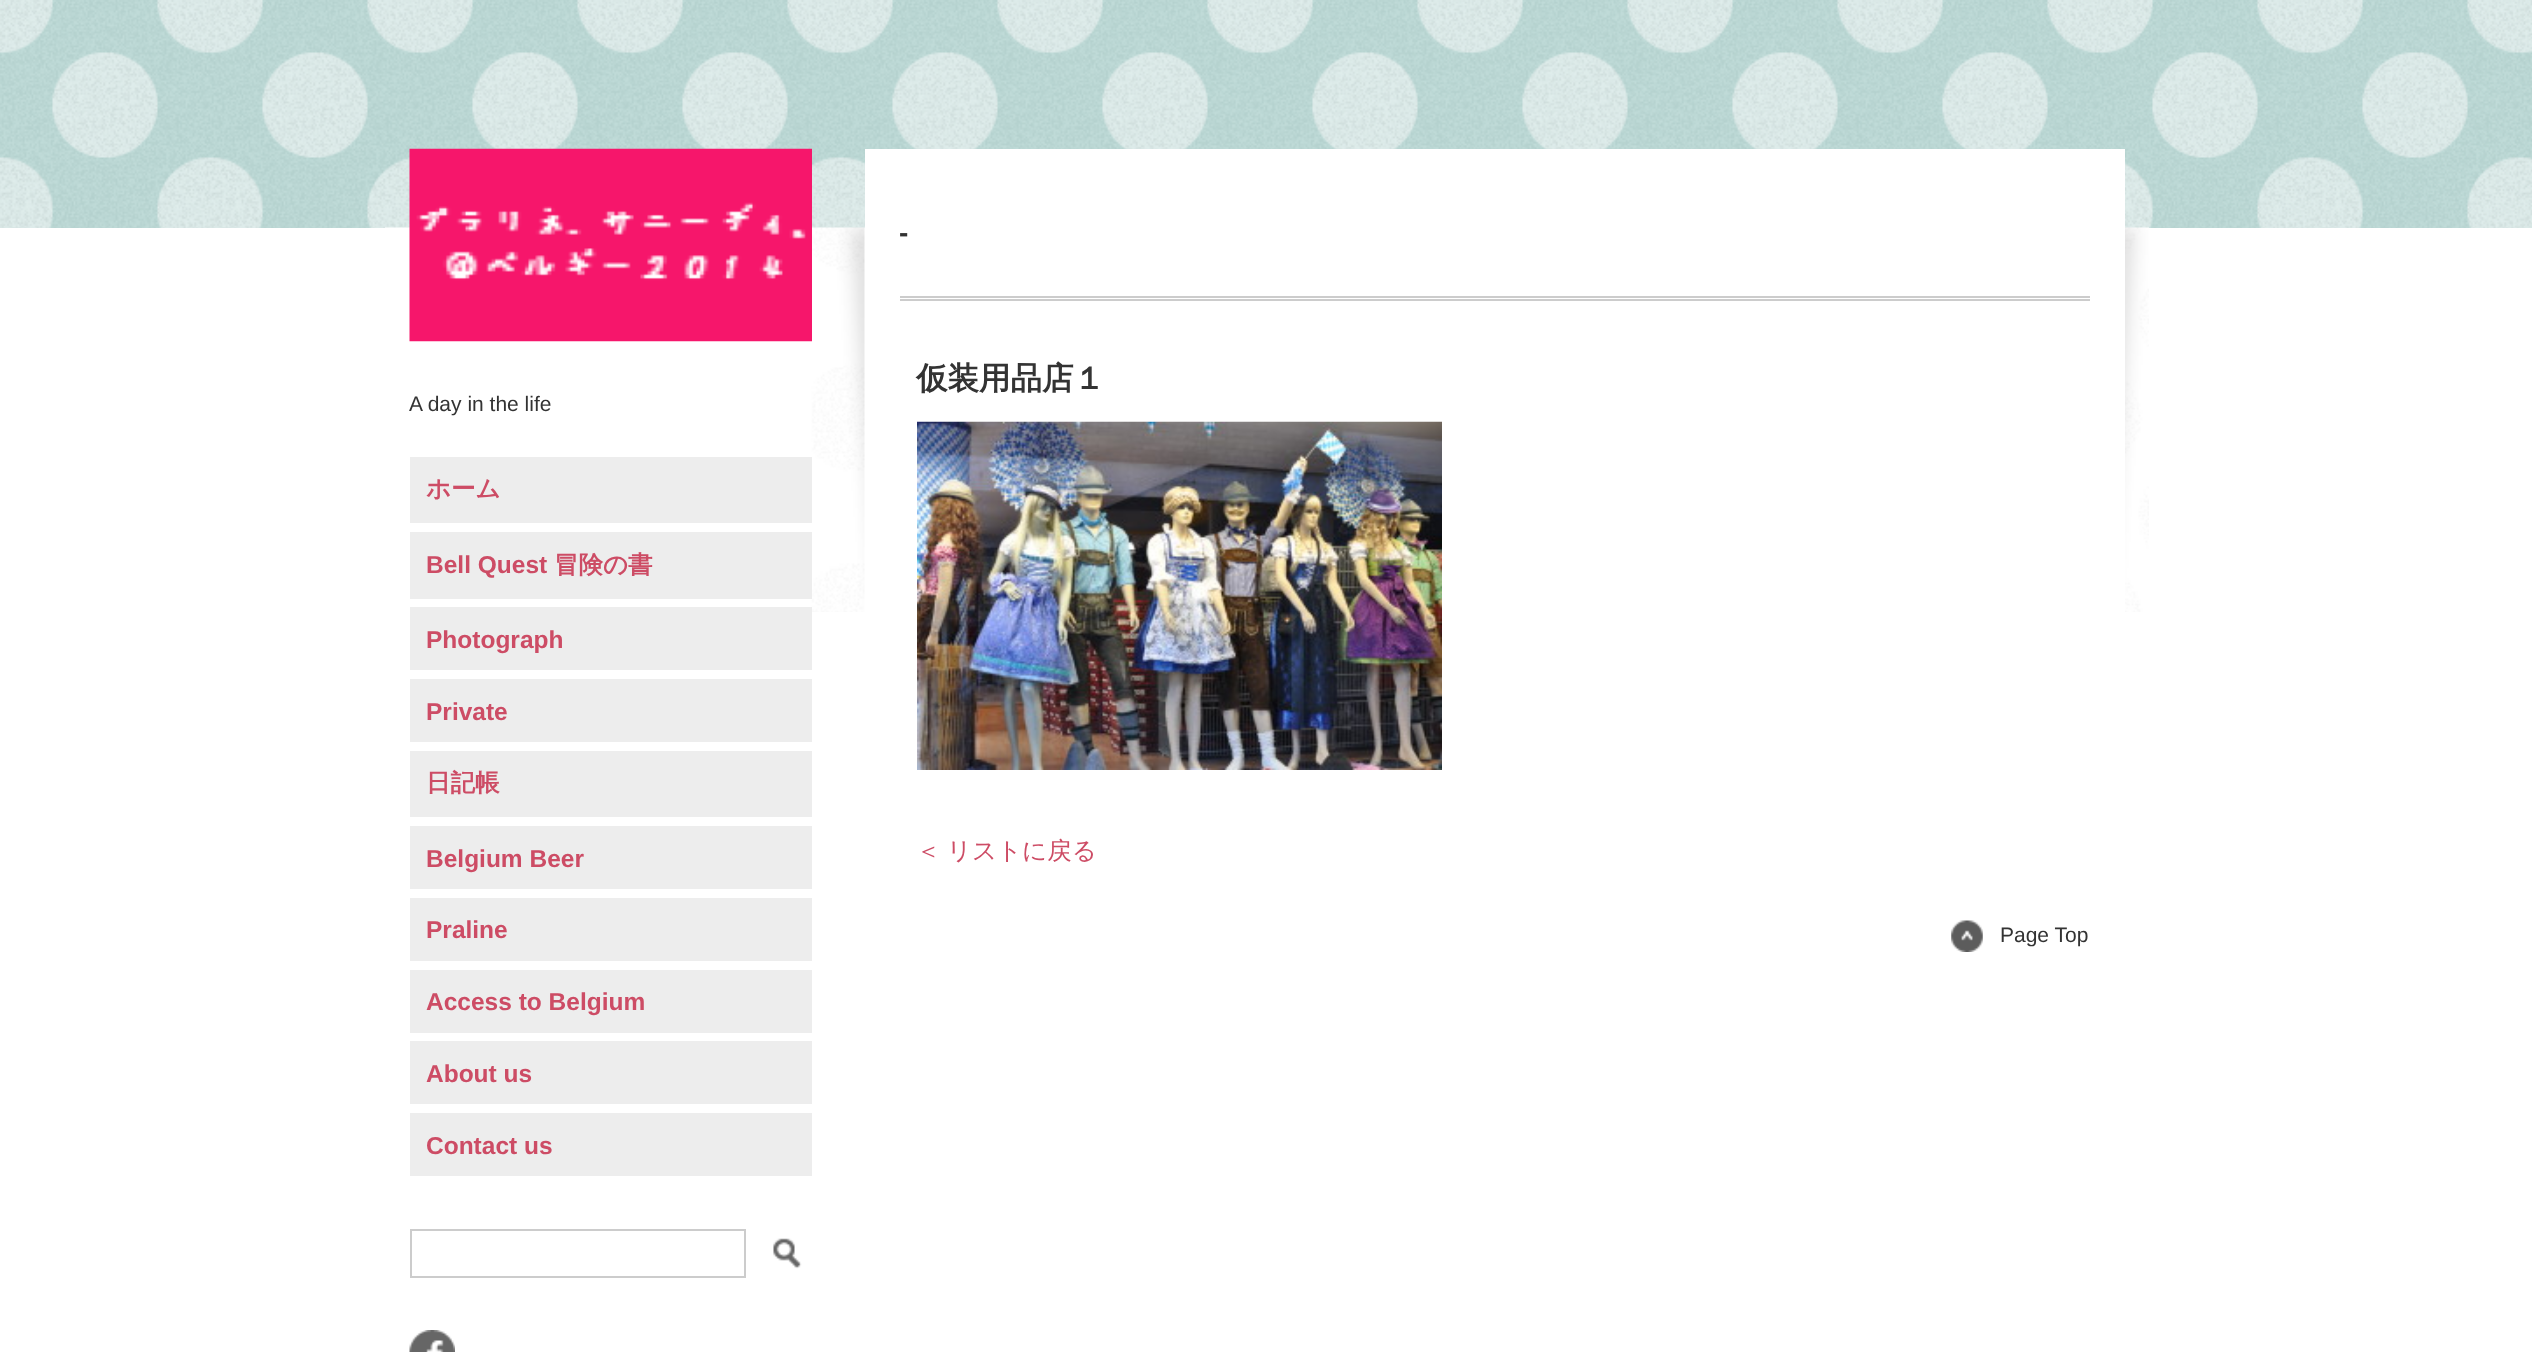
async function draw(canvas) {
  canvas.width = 2532;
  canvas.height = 1352;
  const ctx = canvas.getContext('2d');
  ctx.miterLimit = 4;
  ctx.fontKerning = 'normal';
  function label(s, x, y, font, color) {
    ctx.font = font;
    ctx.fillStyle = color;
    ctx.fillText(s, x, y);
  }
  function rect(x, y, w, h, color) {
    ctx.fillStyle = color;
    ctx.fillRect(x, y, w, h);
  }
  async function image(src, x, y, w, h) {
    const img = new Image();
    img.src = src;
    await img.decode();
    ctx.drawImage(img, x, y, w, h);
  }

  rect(0, 0, 2532, 1352, '#fff');
  await image('assets/img1.png', 0, 0, 2532, 228);
  await image('assets/img2.png', 385, 227, 1764, 385);
  await image('assets/img3.png', 409, 148, 403, 194);
  label('A day in the life', 409, 411, '21px Liberation Sans', '#333');
  rect(410, 457, 402, 66, '#ededed');
  label('ホーム', 426, 497, 'bold 24.5px WenQuanYi Zen Hei', '#cd4c65');
  rect(410, 532, 402, 67, '#ededed');
  label('Bell Quest', 426, 573, 'bold 24.5px Liberation Sans', '#cd4c65');
  label('冒険の書', 554, 573, 'bold 24.5px WenQuanYi Zen Hei', '#cd4c65');
  rect(410, 607, 402, 63, '#ededed');
  label('Photograph', 426, 648, 'bold 24.5px Liberation Sans', '#cd4c65');
  rect(410, 679, 402, 63, '#ededed');
  label('Private', 426, 720, 'bold 24.5px Liberation Sans', '#cd4c65');
  rect(410, 751, 402, 66, '#ededed');
  label('日記帳', 426, 791, 'bold 24.5px WenQuanYi Zen Hei', '#cd4c65');
  rect(410, 826, 402, 63, '#ededed');
  label('Belgium Beer', 426, 867, 'bold 24.5px Liberation Sans', '#cd4c65');
  rect(410, 898, 402, 63, '#ededed');
  label('Praline', 426, 938, 'bold 24.5px Liberation Sans', '#cd4c65');
  rect(410, 970, 402, 63, '#ededed');
  label('Access to Belgium', 426, 1010, 'bold 24.5px Liberation Sans', '#cd4c65');
  rect(410, 1041, 402, 63, '#ededed');
  label('About us', 426, 1082, 'bold 24.5px Liberation Sans', '#cd4c65');
  rect(410, 1113, 402, 63, '#ededed');
  label('Contact us', 426, 1154, 'bold 24.5px Liberation Sans', '#cd4c65');
  ctx.strokeStyle = '#ccc';
  ctx.lineWidth = 2;
  ctx.strokeRect(411, 1230, 334, 47);
  await image('assets/img4.png', 773, 1238, 29, 31);
  await image('assets/img5.png', 409, 1330, 46, 22);
  rect(865, 149, 1260, 463, '#fff');
  rect(900, 296, 1190, 2, '#ccc');
  rect(900, 299, 1190, 2, '#ccc');
  label('-', 899, 242, 'bold 28px Liberation Sans', '#333');
  label('仮装用品店１', 916, 389, 'bold 31.5px WenQuanYi Zen Hei', '#333');
  await image('assets/img6.png', 917, 421, 525, 349);
  ctx.wordSpacing = '-1px';
  label('＜ リストに戻る', 916, 859, '500 24.5px WenQuanYi Zen Hei', '#cd4c65');
  await image('assets/img7.png', 1951, 920, 32, 32);
  ctx.wordSpacing = '0px';
  label('Page Top', 2000, 942, '21px Liberation Sans', '#333');
}

draw(document.querySelector('canvas'));
